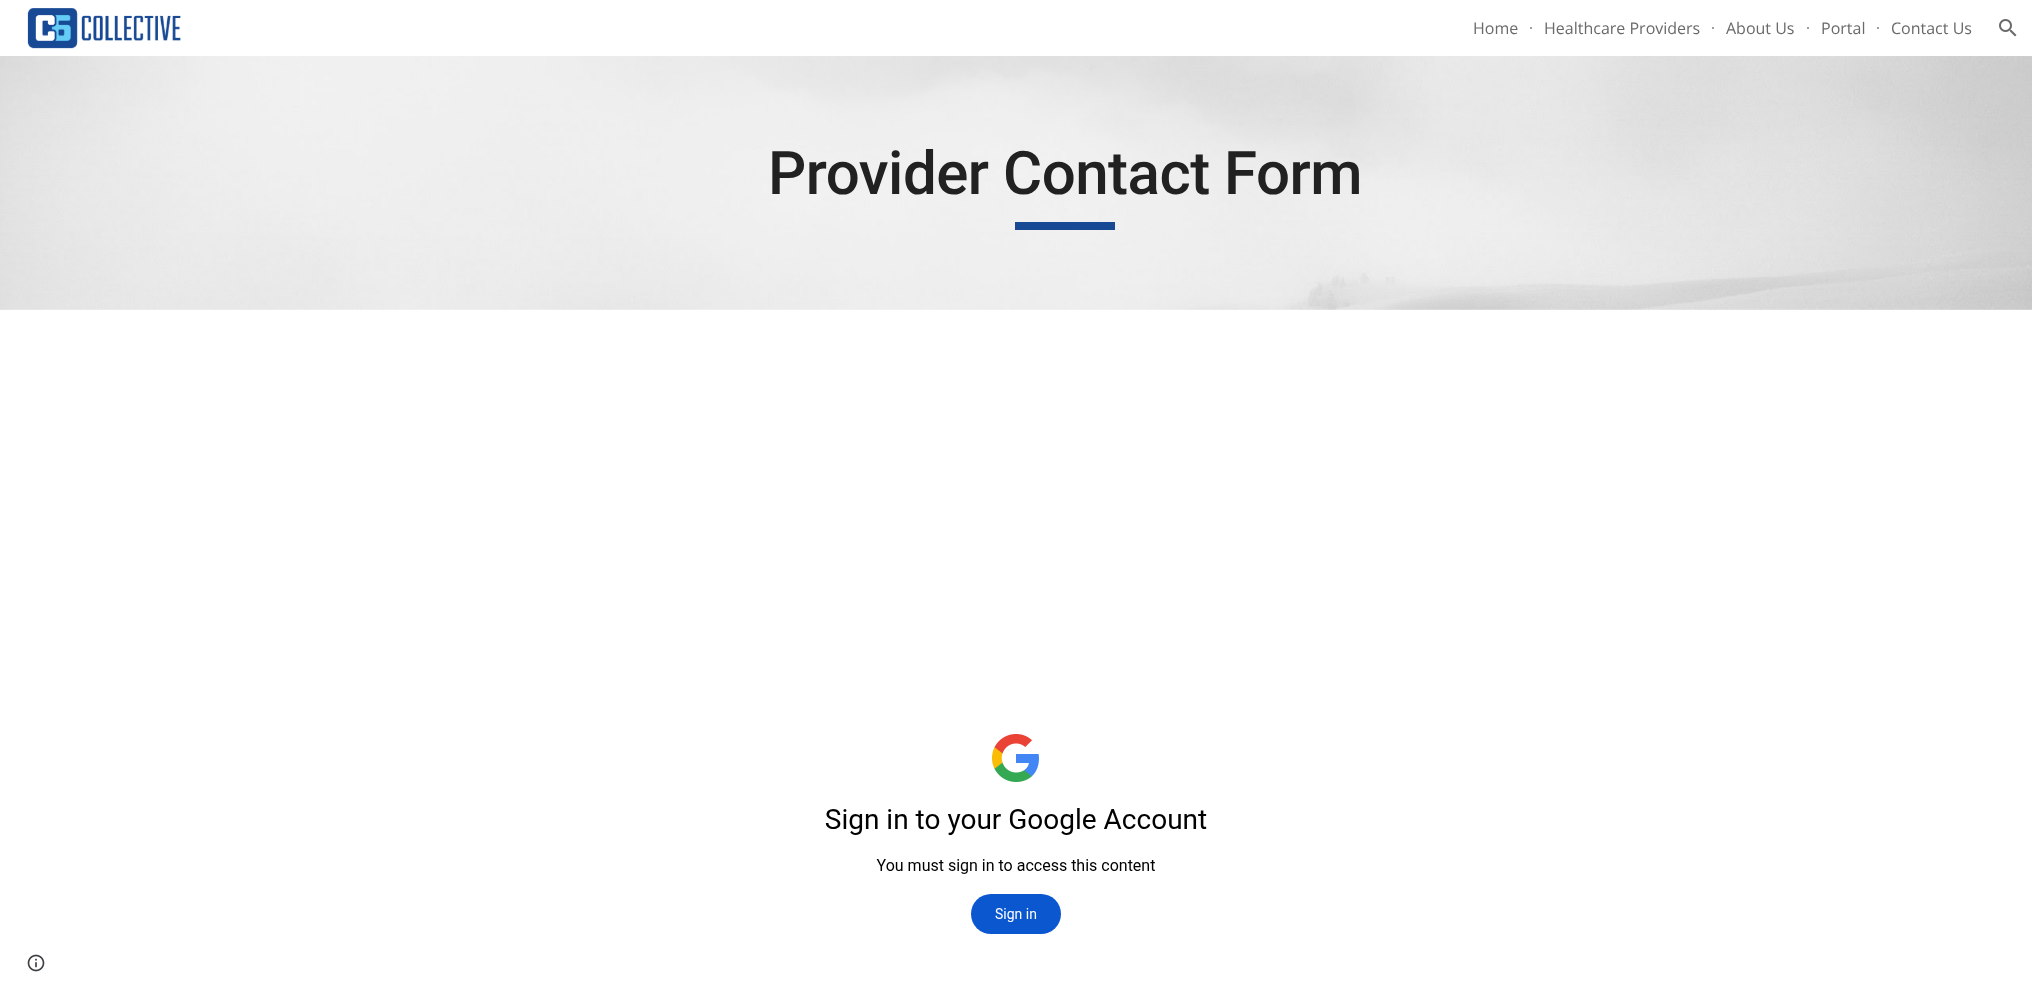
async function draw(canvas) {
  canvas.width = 2032;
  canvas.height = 997;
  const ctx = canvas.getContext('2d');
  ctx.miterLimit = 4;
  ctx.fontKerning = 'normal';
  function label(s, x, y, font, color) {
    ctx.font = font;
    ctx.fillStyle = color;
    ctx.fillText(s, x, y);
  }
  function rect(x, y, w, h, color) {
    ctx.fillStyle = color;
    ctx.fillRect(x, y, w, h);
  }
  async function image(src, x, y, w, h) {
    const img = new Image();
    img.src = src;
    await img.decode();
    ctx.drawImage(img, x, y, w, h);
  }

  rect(0, 0, 2032, 997, '#fff');
  await image('assets/img1.png', 27, 8, 154, 41);
  label('Home', 1473, 34, '16px Open Sans', '#6a6a6a');
  rect(1530, 27, 2, 2, '#9e9e9e');
  label('Healthcare Providers', 1544, 34, '16px Open Sans', '#6a6a6a');
  rect(1712, 27, 2, 2, '#9e9e9e');
  label('About Us', 1726, 34, '16px Open Sans', '#6a6a6a');
  rect(1807, 27, 2, 2, '#9e9e9e');
  label('Portal', 1821, 34, '16px Open Sans', '#6a6a6a');
  rect(1877, 27, 2, 2, '#9e9e9e');
  label('Contact Us', 1891, 34, '16px Open Sans', '#6a6a6a');
  await image('assets/img2.png', 1999, 19, 18, 18);
  await image('assets/img3.png', 0, 56, 2032, 254);
  ctx.letterSpacing = '-0.5px';
  label('Provider Contact Form', 768, 194, '500 60px Roboto', '#212121');
  rect(1015, 222, 100, 8, '#184995');
  await image('assets/img4.png', 825, 734, 382, 200);
  await image('assets/img5.png', 27, 954, 18, 18);
}

draw(document.querySelector('canvas'));
